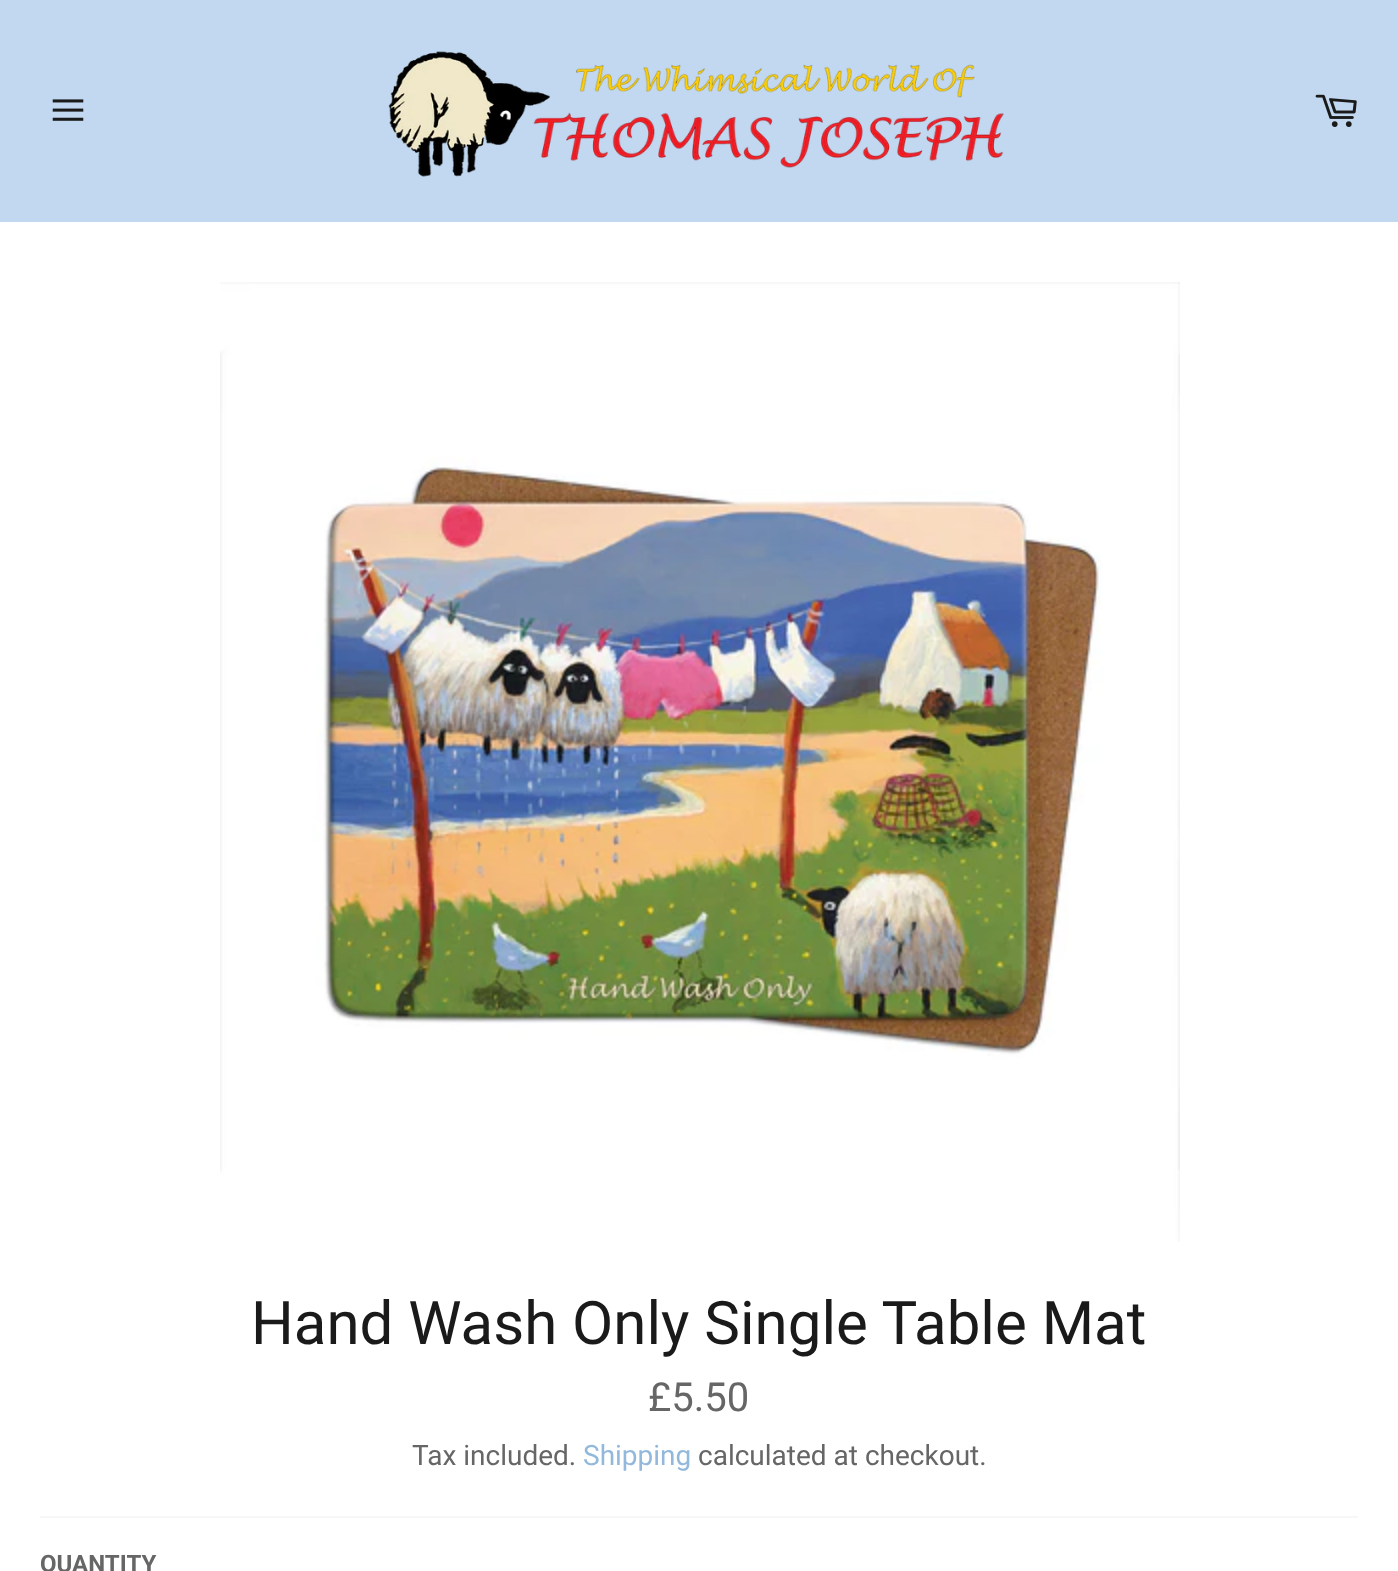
async function draw(canvas) {
  canvas.width = 1398;
  canvas.height = 1571;
  const ctx = canvas.getContext('2d');
  ctx.miterLimit = 4;
  ctx.fontKerning = 'normal';
  function label(s, x, y, font, color) {
    ctx.font = font;
    ctx.fillStyle = color;
    ctx.fillText(s, x, y);
  }
  function rect(x, y, w, h, color) {
    ctx.fillStyle = color;
    ctx.fillRect(x, y, w, h);
  }
  async function image(src, x, y, w, h) {
    const img = new Image();
    img.src = src;
    await img.decode();
    ctx.drawImage(img, x, y, w, h);
  }

  rect(0, 0, 1398, 1571, '#c1d8f0');
  await image('assets/img1.png', 52, 99, 32, 22);
  await image('assets/img2.png', 388, 51, 616, 126);
  await image('assets/img3.png', 1315, 94, 42, 33);
  rect(0, 222, 1398, 1349, '#fff');
  await image('assets/img4.png', 220, 282, 960, 960);
  label('Hand Wash Only Single Table Mat', 251, 1344, '60px Roboto', '#1a1a1a');
  label('£5.50', 648, 1411, '40px Roboto', '#666');
  label('Tax included.', 412, 1465, '28px Roboto', '#666');
  label('Shipping', 583, 1465, '28px Roboto', '#92b8dc');
  label('calculated at checkout.', 698, 1465, '28px Roboto', '#666');
  rect(40, 1516, 1318, 2, '#f7f7f7');
  label('QUANTITY', 40, 1572, 'bold 24px Roboto', '#666');
}

draw(document.querySelector('canvas'));
